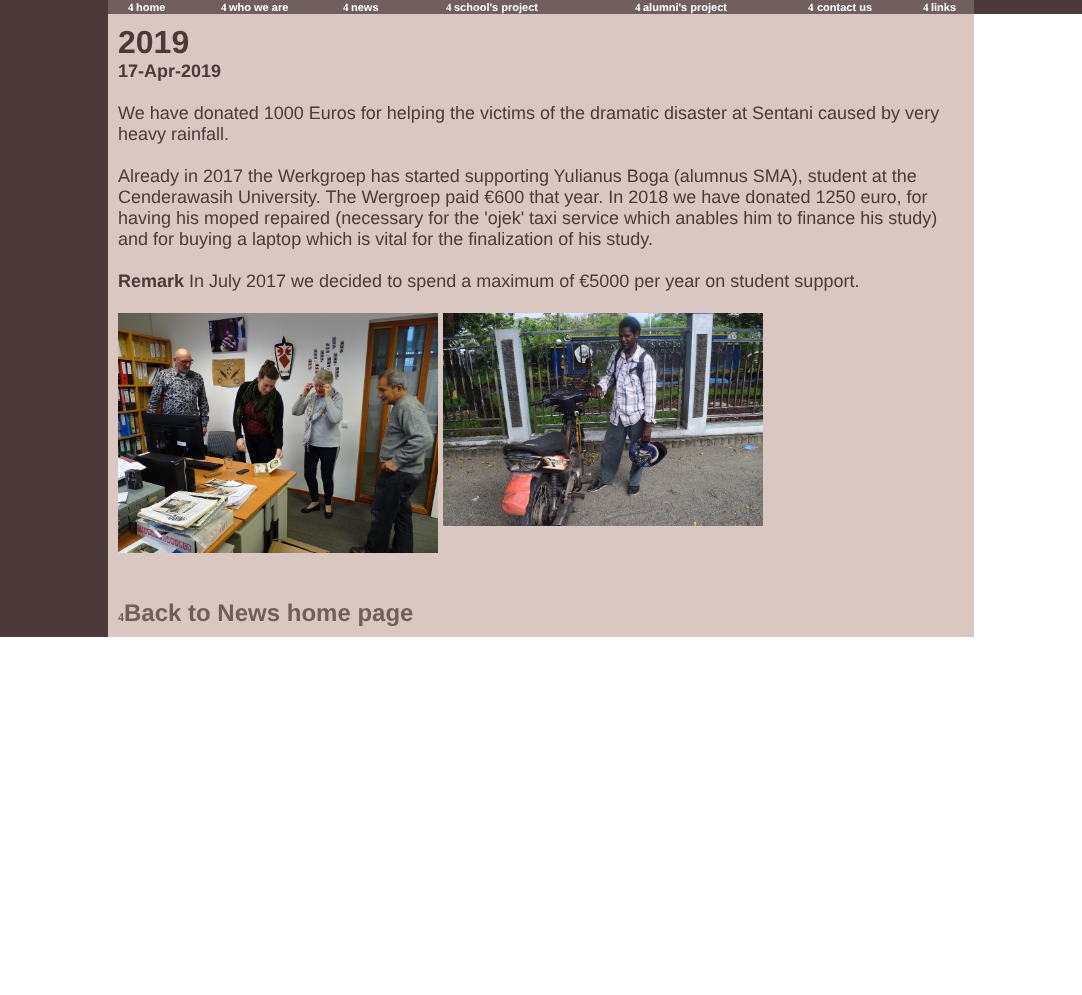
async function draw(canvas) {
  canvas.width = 1082;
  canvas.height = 995;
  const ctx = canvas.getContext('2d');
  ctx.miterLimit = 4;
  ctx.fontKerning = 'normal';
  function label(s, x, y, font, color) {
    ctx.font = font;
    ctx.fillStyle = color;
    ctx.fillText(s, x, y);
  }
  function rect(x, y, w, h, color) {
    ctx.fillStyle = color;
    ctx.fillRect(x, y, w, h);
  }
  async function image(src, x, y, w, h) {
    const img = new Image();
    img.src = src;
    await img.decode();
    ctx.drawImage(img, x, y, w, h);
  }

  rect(0, 0, 1082, 995, '#fff');
  rect(0, 0, 108, 637, '#4c393a');
  rect(108, 0, 866, 14, '#715e5f');
  label('4', 128, 11, 'bold 11px Liberation Serif', '#fff');
  label('home', 136, 11, 'bold 11px Liberation Sans', '#fff');
  label('4', 221, 11, 'bold 11px Liberation Serif', '#fff');
  label('who we are', 229, 11, 'bold 11px Liberation Sans', '#fff');
  label('4', 343, 11, 'bold 11px Liberation Serif', '#fff');
  label('news', 351, 11, 'bold 11px Liberation Sans', '#fff');
  label('4', 446, 11, 'bold 11px Liberation Serif', '#fff');
  label('school\'s project', 454, 11, 'bold 11px Liberation Sans', '#fff');
  label('4', 635, 11, 'bold 11px Liberation Serif', '#fff');
  label('alumni\'s project', 643, 11, 'bold 11px Liberation Sans', '#fff');
  label('4', 808, 11, 'bold 11px Liberation Serif', '#fff');
  label('contact us', 817, 11, 'bold 11px Liberation Sans', '#fff');
  label('4', 923, 11, 'bold 11px Liberation Serif', '#fff');
  label('links', 931, 11, 'bold 11px Liberation Sans', '#fff');
  rect(974, 0, 108, 14, '#4c393a');
  rect(108, 14, 866, 623, '#dac7c1');
  label('2019', 118, 53, 'bold 32px Liberation Sans', '#4c393a');
  label('17-Apr-2019', 118, 77, 'bold 18px Liberation Sans', '#4c393a');
  label('We have donated 1000 Euros for helping the victims of the dramatic disaster at Sentani caused by very', 118, 119, '18px Liberation Sans', '#4c393a');
  label('heavy rainfall.', 118, 140, '18px Liberation Sans', '#4c393a');
  label('Already in 2017 the Werkgroep has started supporting Yulianus Boga (alumnus SMA), student at the', 118, 182, '18px Liberation Sans', '#4c393a');
  label('Cenderawasih University. The Wergroep paid €600 that year. In 2018 we have donated 1250 euro, for', 118, 203, '18px Liberation Sans', '#4c393a');
  label('having his moped repaired (necessary for the \'ojek\' taxi service which anables him to finance his study)', 118, 224, '18px Liberation Sans', '#4c393a');
  label('and for buying a laptop which is vital for the finalization of his study.', 118, 245, '18px Liberation Sans', '#4c393a');
  label('Remark', 118, 287, 'bold 18px Liberation Sans', '#4c393a');
  label('In July 2017 we decided to spend a maximum of €5000 per year on student support.', 189, 287, '18px Liberation Sans', '#4c393a');
  await image('assets/img1.png', 118, 313, 320, 240);
  await image('assets/img2.png', 443, 313, 320, 213);
  label('4', 118, 621, 'bold 12px Liberation Serif', '#715e58');
  label('Back to News home page', 124, 621, 'bold 24px Liberation Sans', '#715e58');
}

draw(document.querySelector('canvas'));
